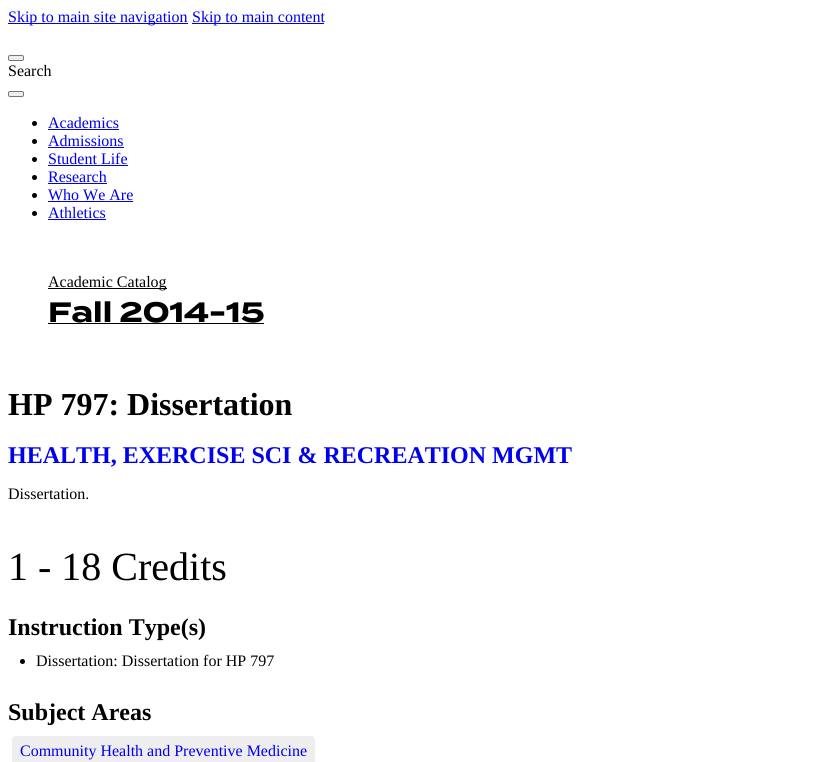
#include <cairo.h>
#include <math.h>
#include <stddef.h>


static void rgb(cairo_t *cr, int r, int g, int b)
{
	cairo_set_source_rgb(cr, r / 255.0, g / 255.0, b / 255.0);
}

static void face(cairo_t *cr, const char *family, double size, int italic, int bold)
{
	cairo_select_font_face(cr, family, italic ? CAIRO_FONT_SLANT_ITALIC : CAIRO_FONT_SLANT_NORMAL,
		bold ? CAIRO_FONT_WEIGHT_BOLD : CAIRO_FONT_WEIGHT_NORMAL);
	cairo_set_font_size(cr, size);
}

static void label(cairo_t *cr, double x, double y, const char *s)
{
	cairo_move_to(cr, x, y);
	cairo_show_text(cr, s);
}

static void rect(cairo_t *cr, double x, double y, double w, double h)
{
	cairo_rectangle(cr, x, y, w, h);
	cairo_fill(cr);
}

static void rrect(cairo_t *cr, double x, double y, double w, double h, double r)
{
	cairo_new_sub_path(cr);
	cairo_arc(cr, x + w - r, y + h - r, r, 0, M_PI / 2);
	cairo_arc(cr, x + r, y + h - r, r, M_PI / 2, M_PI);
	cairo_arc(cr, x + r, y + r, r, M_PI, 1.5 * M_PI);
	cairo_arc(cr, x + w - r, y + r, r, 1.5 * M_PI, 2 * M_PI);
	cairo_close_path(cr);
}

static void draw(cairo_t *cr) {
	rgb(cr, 255, 255, 255);
	cairo_paint(cr);
	rgb(cr, 0, 0, 238);
	rect(cr, 8, 23, 180, 1);
	face(cr, "Liberation Serif", 16, 0, 0);
	label(cr, 8, 22, "Skip to main site navigation");
	rect(cr, 192, 23, 132, 1);
	label(cr, 192, 22, "Skip to main content");
	rgb(cr, 239, 239, 239);
	rrect(cr, 8.5, 55.5, 15, 5, 1.5);
	cairo_fill_preserve(cr);
	rgb(cr, 118, 118, 118);
	cairo_set_line_width(cr, 1);
	cairo_stroke(cr);
	rgb(cr, 0, 0, 0);
	label(cr, 8, 76, "Search");
	rgb(cr, 239, 239, 239);
	rrect(cr, 8.5, 91.5, 15, 5, 1.5);
	cairo_fill_preserve(cr);
	rgb(cr, 118, 118, 118);
	cairo_stroke(cr);
	rgb(cr, 0, 0, 0);
	cairo_arc(cr, 34.5, 123.5, 2.5, 0, 2 * M_PI);
	cairo_fill(cr);
	rgb(cr, 0, 0, 238);
	label(cr, 48, 128, "Academics");
	rect(cr, 48, 129, 71, 1);
	rgb(cr, 0, 0, 0);
	cairo_new_path(cr);
	cairo_arc(cr, 34.5, 141.5, 2.5, 0, 2 * M_PI);
	cairo_fill(cr);
	rgb(cr, 0, 0, 238);
	label(cr, 48, 146, "Admissions");
	rect(cr, 48, 147, 76, 1);
	rgb(cr, 0, 0, 0);
	cairo_new_path(cr);
	cairo_arc(cr, 34.5, 159.5, 2.5, 0, 2 * M_PI);
	cairo_fill(cr);
	rgb(cr, 0, 0, 238);
	label(cr, 48, 164, "Student Life");
	rect(cr, 48, 165, 80, 1);
	rgb(cr, 0, 0, 0);
	cairo_new_path(cr);
	cairo_arc(cr, 34.5, 177.5, 2.5, 0, 2 * M_PI);
	cairo_fill(cr);
	rgb(cr, 0, 0, 238);
	label(cr, 48, 182, "Research");
	rect(cr, 48, 183, 59, 1);
	rgb(cr, 0, 0, 0);
	cairo_new_path(cr);
	cairo_arc(cr, 34.5, 195.5, 2.5, 0, 2 * M_PI);
	cairo_fill(cr);
	rgb(cr, 0, 0, 238);
	label(cr, 48, 200, "Who We Are");
	rect(cr, 48, 201, 85, 1);
	rgb(cr, 0, 0, 0);
	cairo_new_path(cr);
	cairo_arc(cr, 34.5, 213.5, 2.5, 0, 2 * M_PI);
	cairo_fill(cr);
	rgb(cr, 0, 0, 238);
	label(cr, 48, 218, "Athletics");
	rect(cr, 48, 219, 58, 1);
	rgb(cr, 0, 0, 0);
	rect(cr, 48, 288, 119, 1);
	label(cr, 48, 287, "Academic Catalog");
	face(cr, "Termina", 28, 0, 1);
	label(cr, 48, 322, "Fall 2014-15");
	rect(cr, 48, 323, 216, 1);
	face(cr, "Liberation Serif", 32, 0, 1);
	label(cr, 8, 415, "HP 797: Dissertation");
	face(cr, "Liberation Serif", 24, 0, 1);
	rgb(cr, 0, 0, 238);
	label(cr, 8, 463, "HEALTH, EXERCISE SCI & RECREATION MGMT");
	face(cr, "Liberation Serif", 16, 0, 0);
	rgb(cr, 0, 0, 0);
	label(cr, 8, 499, "Dissertation.");
	face(cr, "Liberation Serif", 40, 0, 0);
	label(cr, 8, 580, "1 - 18 Credits");
	face(cr, "Liberation Serif", 24, 0, 1);
	label(cr, 8, 635, "Instruction Type(s)");
	cairo_new_path(cr);
	cairo_arc(cr, 22.5, 661.5, 2.5, 0, 2 * M_PI);
	cairo_fill(cr);
	face(cr, "Liberation Serif", 16, 0, 0);
	label(cr, 36, 666, "Dissertation: Dissertation for HP 797");
	face(cr, "Liberation Serif", 24, 0, 1);
	label(cr, 8, 720, "Subject Areas");
	rgb(cr, 238, 238, 238);
	rrect(cr, 12, 736, 303, 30, 4);
	cairo_fill(cr);
	face(cr, "Liberation Serif", 16, 0, 0);
	rgb(cr, 0, 0, 238);
	label(cr, 20, 756, "Community Health and Preventive Medicine");
}

int main(void) {
	cairo_surface_t *surface = cairo_image_surface_create(CAIRO_FORMAT_RGB24, 834, 762);
	cairo_t *cr = cairo_create(surface);
	cairo_font_options_t *options = cairo_font_options_create();
	cairo_font_options_set_hint_metrics(options, CAIRO_HINT_METRICS_OFF);
	cairo_font_options_set_hint_style(options, CAIRO_HINT_STYLE_NONE);
	cairo_set_font_options(cr, options);
	cairo_set_miter_limit(cr, 4);
	draw(cr);
	cairo_surface_write_to_png(surface, "render.png");
	cairo_font_options_destroy(options);
	cairo_destroy(cr);
	cairo_surface_destroy(surface);
	return 0;
}
